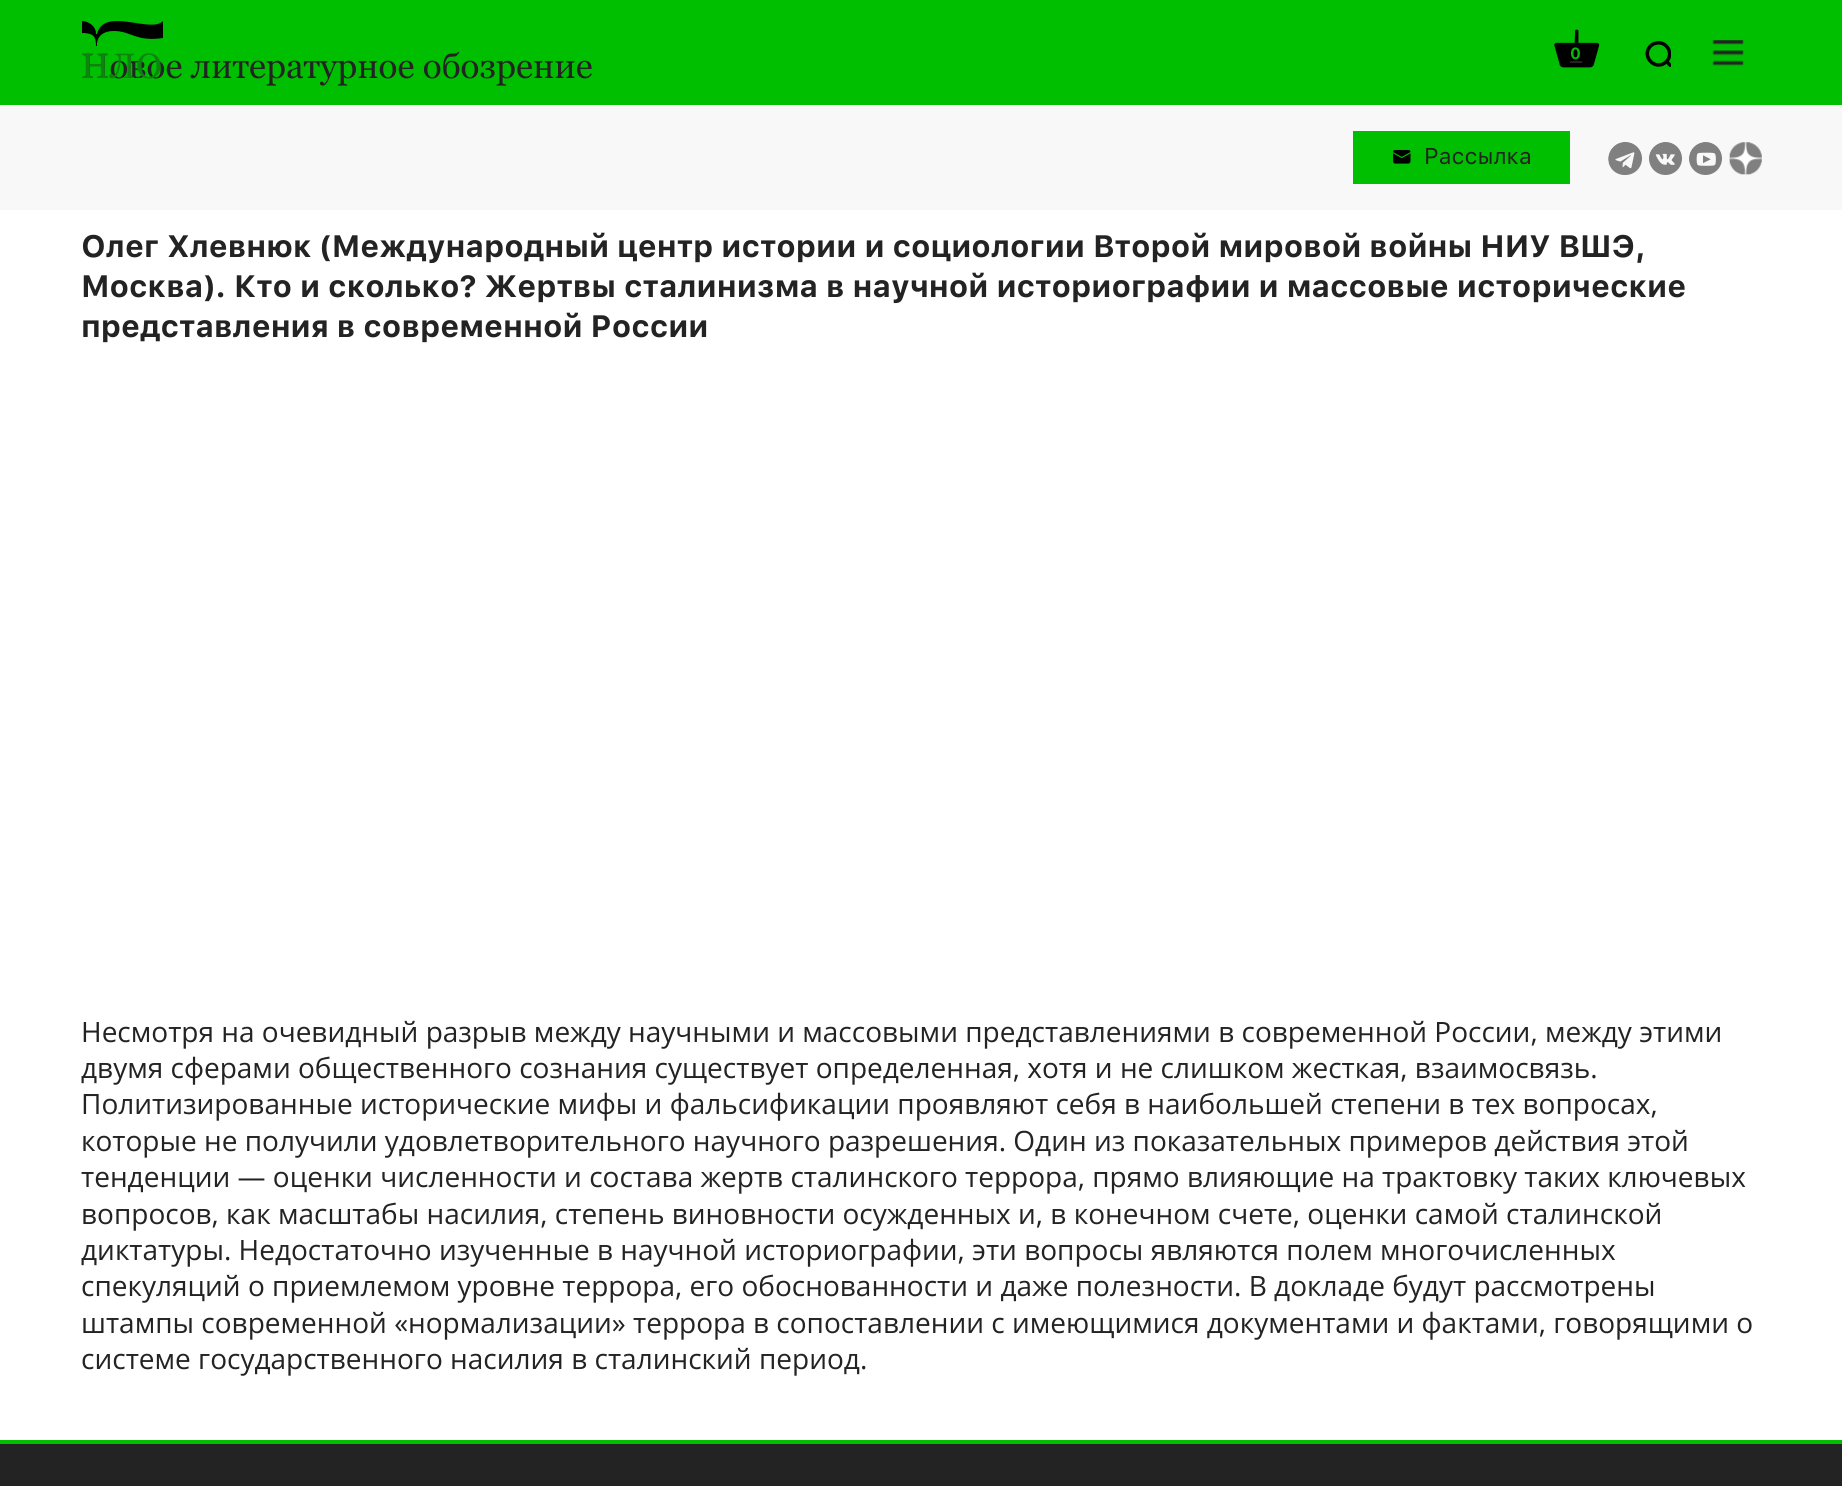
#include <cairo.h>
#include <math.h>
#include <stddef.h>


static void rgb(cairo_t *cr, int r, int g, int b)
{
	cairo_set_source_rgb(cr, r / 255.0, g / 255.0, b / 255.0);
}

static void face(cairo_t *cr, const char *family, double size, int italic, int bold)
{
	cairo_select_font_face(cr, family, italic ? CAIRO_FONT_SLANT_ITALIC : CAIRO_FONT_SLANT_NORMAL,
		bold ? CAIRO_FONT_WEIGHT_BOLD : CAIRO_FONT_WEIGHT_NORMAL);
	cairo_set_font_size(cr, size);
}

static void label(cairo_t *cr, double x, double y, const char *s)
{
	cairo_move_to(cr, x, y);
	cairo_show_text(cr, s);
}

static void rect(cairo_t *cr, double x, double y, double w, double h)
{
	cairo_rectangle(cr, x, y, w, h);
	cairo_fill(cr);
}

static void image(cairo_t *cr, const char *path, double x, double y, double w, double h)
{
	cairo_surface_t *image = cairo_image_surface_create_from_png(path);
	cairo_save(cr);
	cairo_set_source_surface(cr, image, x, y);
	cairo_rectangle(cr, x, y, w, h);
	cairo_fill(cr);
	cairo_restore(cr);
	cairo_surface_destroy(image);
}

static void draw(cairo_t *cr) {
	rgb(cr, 255, 255, 255);
	cairo_paint(cr);
	rgb(cr, 0, 190, 0);
	rect(cr, 0, 0, 1842, 105);
	rgb(cr, 0, 0, 0);
	cairo_new_path(cr);
	cairo_move_to(cr, 163, 38);
	cairo_curve_to(cr, 136, 42, 131, 31, 114, 31);
	cairo_curve_to(cr, 95, 31, 97, 46, 97, 46);
	cairo_line_to(cr, 96, 46);
	cairo_curve_to(cr, 96, 37, 94, 33, 82, 33);
	cairo_line_to(cr, 82, 21);
	cairo_curve_to(cr, 87, 21, 96, 25, 96, 34);
	cairo_line_to(cr, 97, 34);
	cairo_curve_to(cr, 104, 6, 151, 34, 163, 21);
	cairo_close_path(cr);
	cairo_fill(cr);
	face(cr, "Georgia", 35, 0, 0);
	rgb(cr, 35, 35, 35);
	label(cr, 81, 78, "Новое литературное обозрение");
	rgb(cr, 13, 132, 13);
	label(cr, 81, 78, "НЛО");
	image(cr, "image0.png", 1554, 29, 46, 39);
	face(cr, "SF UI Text", 16, 0, 1);
	rgb(cr, 0, 190, 0);
	label(cr, 1570, 59, "0");
	rgb(cr, 35, 35, 35);
	rect(cr, 1570, 61, 12, 2);
	cairo_save(cr);
	cairo_rectangle(cr, 1643, 39, 28, 28);
	cairo_clip(cr);
	cairo_new_path(cr);
	cairo_move_to(cr, 1672.5, 67.5);
	cairo_line_to(cr, 1666.5, 61.5);
	cairo_move_to(cr, 1666.5, 61.5);
	cairo_curve_to(cr, 1674, 54, 1667, 41, 1656.5, 43);
	cairo_curve_to(cr, 1654, 43.5, 1652, 44.5, 1650.5, 46);
	cairo_curve_to(cr, 1640.5, 56.5, 1656, 72, 1666.5, 61.5);
	cairo_close_path(cr);
	rgb(cr, 0, 0, 0);
	cairo_set_line_width(cr, 3.5);
	cairo_set_line_cap(cr, CAIRO_LINE_CAP_ROUND);
	cairo_set_line_join(cr, CAIRO_LINE_JOIN_ROUND);
	cairo_stroke(cr);
	cairo_restore(cr);
	image(cr, "image1.png", 1712, 40, 32, 26);
	rgb(cr, 248, 248, 248);
	rect(cr, 0, 105, 1842, 105);
	rgb(cr, 0, 190, 0);
	rect(cr, 1353, 131, 217, 53);
	image(cr, "image2.png", 1393, 150, 18, 14);
	face(cr, "SF UI Text", 22.75, 0, 0);
	rgb(cr, 35, 35, 35);
	label(cr, 1424, 164, "Рассылка");
	image(cr, "image3.png", 1608, 142, 34, 33);
	image(cr, "image4.png", 1649, 142, 33, 33);
	image(cr, "image5.png", 1689, 142, 33, 33);
	image(cr, "image6.png", 1729, 142, 33, 33);
	face(cr, "SF UI Text", 30.8, 0, 1);
	label(cr, 81, 257, "Олег Хлевнюк (Международный центр истории и социологии Второй мировой войны НИУ ВШЭ,");
	label(cr, 81, 297, "Москва). Кто и сколько? Жертвы сталинизма в научной историографии и массовые исторические");
	label(cr, 81, 337, "представления в современной России");
	face(cr, "Open Sans", 28, 0, 0);
	label(cr, 81, 1042, "Несмотря на очевидный разрыв между научными и массовыми представлениями в современной России, между этими");
	label(cr, 81, 1078, "двумя сферами общественного сознания существует определенная, хотя и не слишком жесткая, взаимосвязь.");
	label(cr, 81, 1114, "Политизированные исторические мифы и фальсификации проявляют себя в наибольшей степени в тех вопросах,");
	label(cr, 81, 1151, "которые не получили удовлетворительного научного разрешения. Один из показательных примеров действия этой");
	label(cr, 81, 1187, "тенденции — оценки численности и состава жертв сталинского террора, прямо влияющие на трактовку таких ключевых");
	label(cr, 81, 1224, "вопросов, как масштабы насилия, степень виновности осужденных и, в конечном счете, оценки самой сталинской");
	label(cr, 81, 1260, "диктатуры. Недостаточно изученные в научной историографии, эти вопросы являются полем многочисленных");
	label(cr, 81, 1296, "спекуляций о приемлемом уровне террора, его обоснованности и даже полезности. В докладе будут рассмотрены");
	label(cr, 81, 1333, "штампы современной «нормализации» террора в сопоставлении с имеющимися документами и фактами, говорящими о");
	label(cr, 81, 1369, "системе государственного насилия в сталинский период.");
	rect(cr, 0, 1444, 1842, 42);
	rgb(cr, 0, 190, 0);
	rect(cr, 0, 1440, 1842, 4);
}

int main(void) {
	cairo_surface_t *surface = cairo_image_surface_create(CAIRO_FORMAT_RGB24, 1842, 1486);
	cairo_t *cr = cairo_create(surface);
	cairo_font_options_t *options = cairo_font_options_create();
	cairo_font_options_set_hint_metrics(options, CAIRO_HINT_METRICS_OFF);
	cairo_font_options_set_hint_style(options, CAIRO_HINT_STYLE_NONE);
	cairo_set_font_options(cr, options);
	cairo_set_miter_limit(cr, 4);
	draw(cr);
	cairo_surface_write_to_png(surface, "render.png");
	cairo_font_options_destroy(options);
	cairo_destroy(cr);
	cairo_surface_destroy(surface);
	return 0;
}
